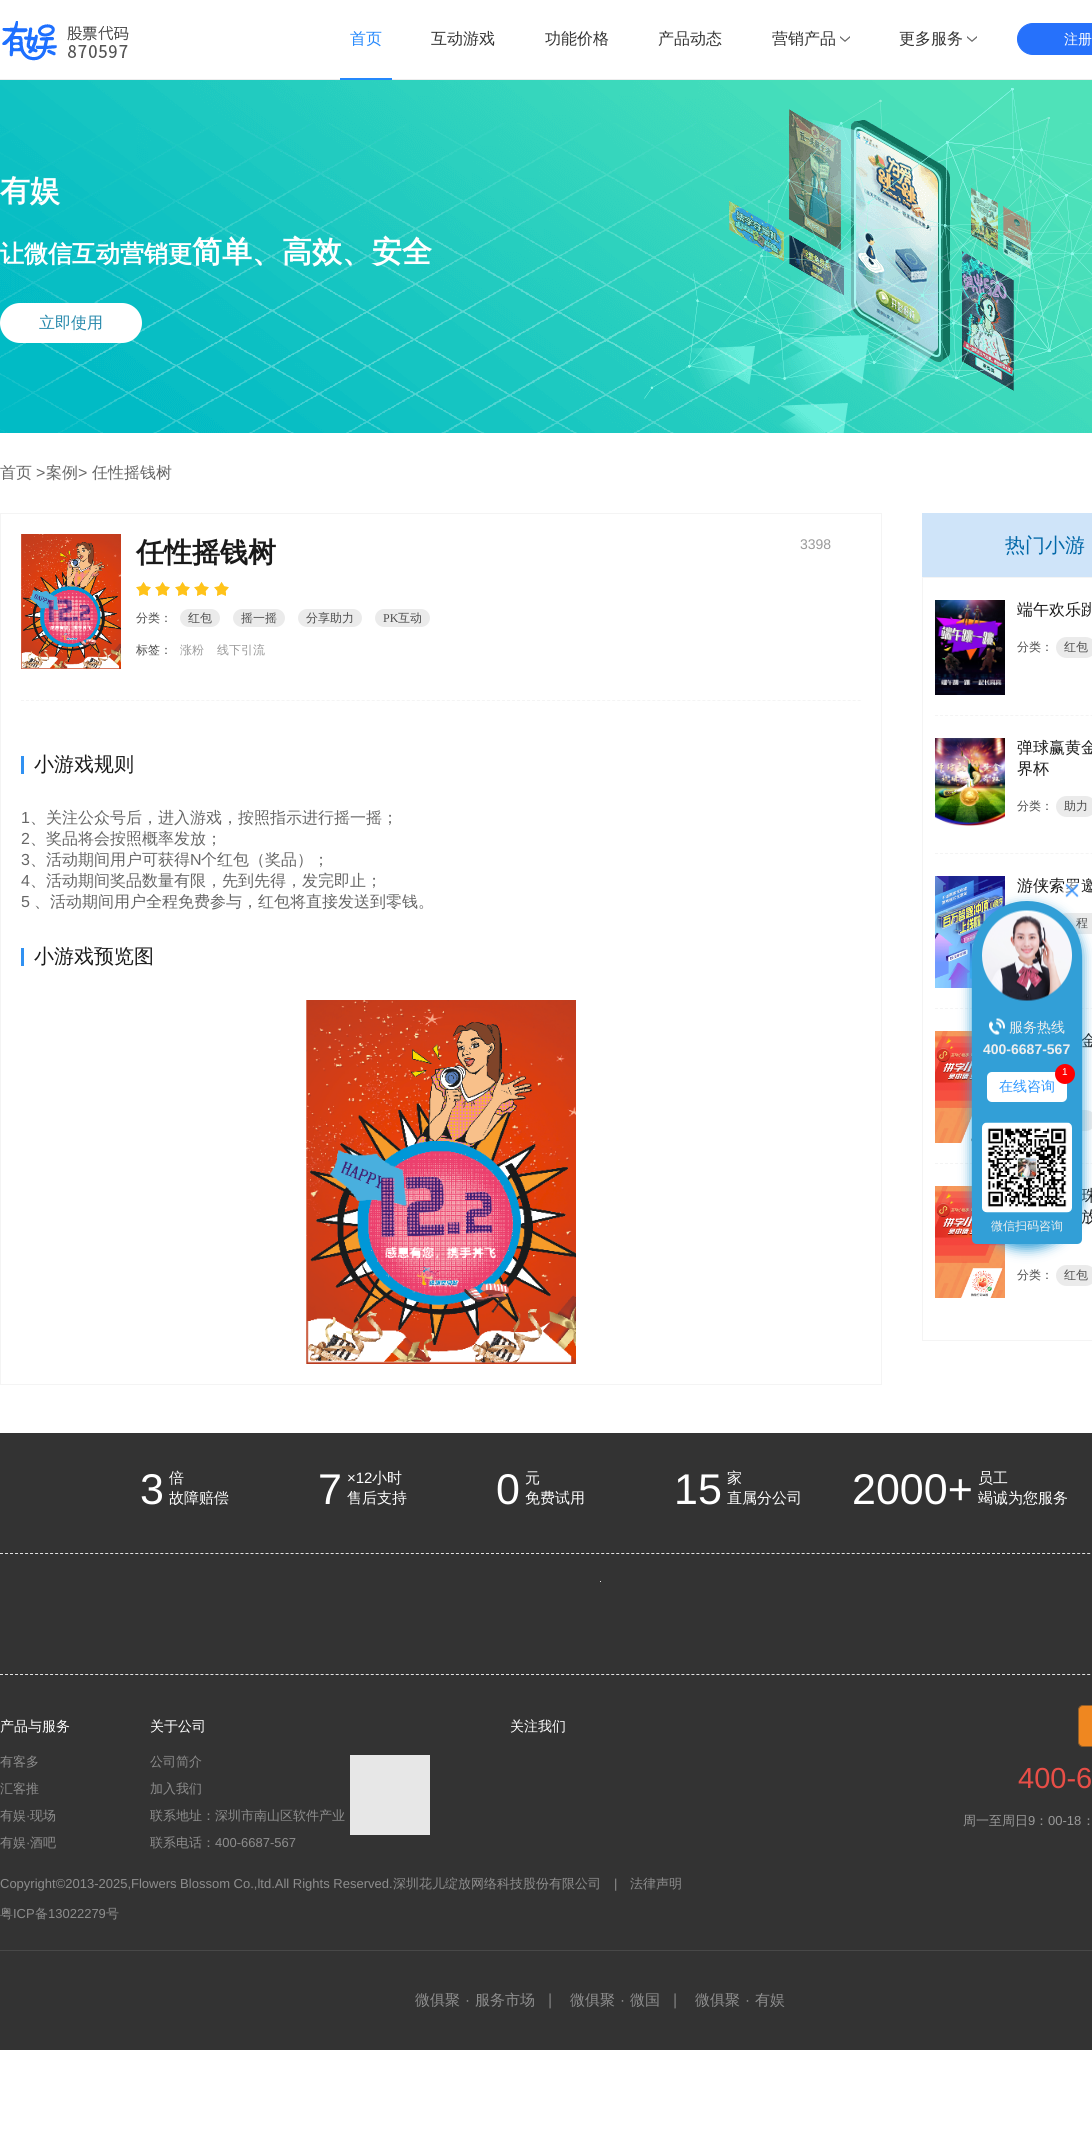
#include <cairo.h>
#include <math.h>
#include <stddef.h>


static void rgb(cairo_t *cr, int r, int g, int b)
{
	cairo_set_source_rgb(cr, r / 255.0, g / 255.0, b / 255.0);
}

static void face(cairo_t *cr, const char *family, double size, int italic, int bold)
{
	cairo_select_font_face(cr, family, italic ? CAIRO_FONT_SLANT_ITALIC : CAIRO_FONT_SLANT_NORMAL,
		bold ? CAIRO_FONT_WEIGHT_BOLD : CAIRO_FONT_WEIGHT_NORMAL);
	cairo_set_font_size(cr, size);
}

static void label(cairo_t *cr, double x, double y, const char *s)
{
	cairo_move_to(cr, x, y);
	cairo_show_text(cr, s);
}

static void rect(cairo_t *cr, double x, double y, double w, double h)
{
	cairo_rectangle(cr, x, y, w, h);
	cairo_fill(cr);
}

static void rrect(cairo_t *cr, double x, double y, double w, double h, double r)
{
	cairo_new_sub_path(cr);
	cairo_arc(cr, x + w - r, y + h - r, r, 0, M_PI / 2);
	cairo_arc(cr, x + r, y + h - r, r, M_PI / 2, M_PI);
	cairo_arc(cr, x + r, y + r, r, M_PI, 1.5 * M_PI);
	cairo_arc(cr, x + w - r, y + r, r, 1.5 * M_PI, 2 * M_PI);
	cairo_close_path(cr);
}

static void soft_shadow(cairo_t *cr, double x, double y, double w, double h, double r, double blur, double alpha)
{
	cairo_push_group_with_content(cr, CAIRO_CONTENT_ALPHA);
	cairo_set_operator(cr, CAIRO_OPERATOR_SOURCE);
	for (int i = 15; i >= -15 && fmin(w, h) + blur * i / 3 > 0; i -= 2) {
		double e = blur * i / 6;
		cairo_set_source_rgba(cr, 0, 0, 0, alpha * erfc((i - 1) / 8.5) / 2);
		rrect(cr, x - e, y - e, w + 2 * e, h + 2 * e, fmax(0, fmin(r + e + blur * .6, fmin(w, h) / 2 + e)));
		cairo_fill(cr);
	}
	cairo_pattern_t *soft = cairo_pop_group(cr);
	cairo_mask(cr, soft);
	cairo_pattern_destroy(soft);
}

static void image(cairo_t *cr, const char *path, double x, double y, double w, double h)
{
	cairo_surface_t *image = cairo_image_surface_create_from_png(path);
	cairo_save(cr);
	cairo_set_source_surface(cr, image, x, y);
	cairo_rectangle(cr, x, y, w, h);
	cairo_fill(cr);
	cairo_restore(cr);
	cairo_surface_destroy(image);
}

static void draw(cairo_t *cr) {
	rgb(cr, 255, 255, 255);
	cairo_paint(cr);
	rgb(cr, 237, 237, 237);
	rect(cr, 0, 79, 1092, 1);
	image(cr, "image0.png", 2, 21, 127, 40);
	rgb(cr, 37, 136, 252);
	rect(cr, 340, 78, 52, 2);
	face(cr, "WenQuanYi Zen Hei Medium", 16, 0, 0);
	label(cr, 350, 44, "首页");
	rgb(cr, 51, 51, 51);
	label(cr, 431, 44, "互动游戏");
	label(cr, 545, 44, "功能价格");
	label(cr, 658, 44, "产品动态");
	label(cr, 772, 44, "营销产品");
	image(cr, "image1.png", 840, 36, 10, 6);
	label(cr, 899, 44, "更多服务");
	image(cr, "image1.png", 967, 36, 10, 6);
	rgb(cr, 38, 113, 251);
	rrect(cr, 1017.5, 23.5, 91, 31, 15.5);
	cairo_fill_preserve(cr);
	cairo_set_line_width(cr, 1);
	cairo_stroke(cr);
	face(cr, "WenQuanYi Zen Hei Medium", 14, 0, 0);
	rgb(cr, 255, 255, 255);
	label(cr, 1064, 44, "注册");
	image(cr, "image2.png", 0, 80, 1092, 353);
	face(cr, "WenQuanYi Zen Hei", 30, 0, 1);
	label(cr, 0, 201, "有娱");
	face(cr, "WenQuanYi Zen Hei", 24, 0, 1);
	label(cr, 0, 262, "让微信互动营销更");
	face(cr, "WenQuanYi Zen Hei", 30, 0, 1);
	label(cr, 192, 262, "简单、高效、安全");
	rrect(cr, 0, 303, 142, 40, 20);
	cairo_fill(cr);
	face(cr, "WenQuanYi Zen Hei Medium", 16, 0, 0);
	rgb(cr, 39, 137, 172);
	label(cr, 39, 328, "立即使用");
	rgb(cr, 102, 102, 102);
	label(cr, 0, 478, "首页");
	face(cr, "Liberation Sans", 16, 0, 0);
	label(cr, 36, 478, ">");
	face(cr, "WenQuanYi Zen Hei Medium", 16, 0, 0);
	label(cr, 46, 478, "案例");
	face(cr, "Liberation Sans", 16, 0, 0);
	label(cr, 78, 478, ">");
	face(cr, "WenQuanYi Zen Hei Medium", 16, 0, 0);
	label(cr, 92, 478, "任性摇钱树");
	cairo_rectangle(cr, 0.5, 513.5, 881, 871);
	rgb(cr, 244, 244, 244);
	cairo_stroke(cr);
	cairo_new_path(cr);
	cairo_move_to(cr, 21, 700.5);
	cairo_line_to(cr, 861, 700.5);
	cairo_set_dash(cr, (double[]){3, 2.01}, 2, 0);
	cairo_stroke(cr);
	image(cr, "image3.png", 21, 534, 100, 135);
	face(cr, "WenQuanYi Zen Hei", 28, 0, 1);
	rgb(cr, 26, 26, 26);
	label(cr, 136, 562, "任性摇钱树");
	image(cr, "image4.png", 136, 582, 15, 14);
	image(cr, "image4.png", 155, 582, 15, 14);
	image(cr, "image4.png", 175, 582, 15, 14);
	image(cr, "image4.png", 194, 582, 15, 14);
	image(cr, "image4.png", 214, 582, 15, 14);
	face(cr, "WenQuanYi Zen Hei Medium", 12, 0, 0);
	rgb(cr, 77, 77, 77);
	label(cr, 136, 622, "分类：");
	rgb(cr, 235, 235, 235);
	rrect(cr, 180, 609, 40, 18, 9);
	cairo_fill(cr);
	rgb(cr, 77, 77, 77);
	label(cr, 188, 622, "红包");
	rgb(cr, 235, 235, 235);
	rrect(cr, 233, 609, 52, 18, 9);
	cairo_fill(cr);
	rgb(cr, 77, 77, 77);
	label(cr, 241, 622, "摇一摇");
	rgb(cr, 235, 235, 235);
	rrect(cr, 298, 609, 64, 18, 9);
	cairo_fill(cr);
	rgb(cr, 77, 77, 77);
	label(cr, 306, 622, "分享助力");
	rgb(cr, 235, 235, 235);
	rrect(cr, 375, 609, 55, 18, 9);
	cairo_fill(cr);
	face(cr, "Liberation Serif", 12, 0, 0);
	rgb(cr, 77, 77, 77);
	label(cr, 383, 622, "PK");
	face(cr, "WenQuanYi Zen Hei Medium", 12, 0, 0);
	label(cr, 398, 622, "互动");
	label(cr, 136, 654, "标签：");
	rgb(cr, 153, 153, 153);
	label(cr, 180, 654, "涨粉");
	label(cr, 217, 654, "线下引流");
	face(cr, "Liberation Sans", 14, 0, 0);
	label(cr, 800, 549, "3398");
	rgb(cr, 48, 145, 242);
	rect(cr, 21, 756, 3, 18);
	face(cr, "WenQuanYi Zen Hei Medium", 20, 0, 0);
	rgb(cr, 26, 26, 26);
	label(cr, 34, 771, "小游戏规则");
	face(cr, "Liberation Sans", 16, 0, 0);
	rgb(cr, 102, 102, 102);
	label(cr, 21, 823, "1");
	face(cr, "WenQuanYi Zen Hei Medium", 16, 0, 0);
	label(cr, 30, 823, "、关注公众号后，进入游戏，按照指示进行摇一摇；");
	face(cr, "Liberation Sans", 16, 0, 0);
	label(cr, 21, 844, "2");
	face(cr, "WenQuanYi Zen Hei Medium", 16, 0, 0);
	label(cr, 30, 844, "、奖品将会按照概率发放；");
	face(cr, "Liberation Sans", 16, 0, 0);
	label(cr, 21, 865, "3");
	face(cr, "WenQuanYi Zen Hei Medium", 16, 0, 0);
	label(cr, 30, 865, "、活动期间用户可获得");
	face(cr, "Liberation Sans", 16, 0, 0);
	label(cr, 190, 865, "N");
	face(cr, "WenQuanYi Zen Hei Medium", 16, 0, 0);
	label(cr, 201, 865, "个红包（奖品）；");
	face(cr, "Liberation Sans", 16, 0, 0);
	label(cr, 21, 886, "4");
	face(cr, "WenQuanYi Zen Hei Medium", 16, 0, 0);
	label(cr, 30, 886, "、活动期间奖品数量有限，先到先得，发完即止；");
	face(cr, "Liberation Sans", 16, 0, 0);
	label(cr, 21, 907, "5");
	face(cr, "WenQuanYi Zen Hei Medium", 16, 0, 0);
	label(cr, 34, 907, "、活动期间用户全程免费参与，红包将直接发送到零钱。");
	rgb(cr, 48, 145, 242);
	rect(cr, 21, 948, 3, 18);
	face(cr, "WenQuanYi Zen Hei Medium", 20, 0, 0);
	rgb(cr, 26, 26, 26);
	label(cr, 34, 963, "小游戏预览图");
	image(cr, "image5.png", 306, 1000, 270, 364);
	rgb(cr, 207, 228, 249);
	rect(cr, 922, 513, 170, 64);
	rgb(cr, 2, 104, 168);
	label(cr, 1005, 552, "热门小游");
	cairo_rectangle(cr, 922.5, 577.5, 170, 763);
	rgb(cr, 244, 244, 244);
	cairo_set_dash(cr, NULL, 0, 0);
	cairo_stroke(cr);
	cairo_new_path(cr);
	cairo_move_to(cr, 935, 715.5);
	cairo_line_to(cr, 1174, 715.5);
	cairo_set_dash(cr, (double[]){3, 2.02}, 2, 0);
	cairo_stroke(cr);
	image(cr, "image6.png", 935, 600, 70, 95);
	face(cr, "WenQuanYi Zen Hei Medium", 16, 0, 0);
	rgb(cr, 26, 26, 26);
	label(cr, 1017, 615, "端午欢乐跳");
	face(cr, "WenQuanYi Zen Hei Medium", 12, 0, 0);
	rgb(cr, 77, 77, 77);
	label(cr, 1017, 651, "分类：");
	rgb(cr, 235, 235, 235);
	rrect(cr, 1056, 637, 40, 21, 10.5);
	cairo_fill(cr);
	rgb(cr, 77, 77, 77);
	label(cr, 1064, 651, "红包");
	cairo_new_path(cr);
	cairo_move_to(cr, 935, 853.5);
	cairo_line_to(cr, 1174, 853.5);
	rgb(cr, 244, 244, 244);
	cairo_stroke(cr);
	image(cr, "image7.png", 935, 738, 70, 88);
	face(cr, "WenQuanYi Zen Hei Medium", 16, 0, 0);
	rgb(cr, 26, 26, 26);
	label(cr, 1017, 753, "弹球赢黄金");
	label(cr, 1017, 774, "界杯");
	face(cr, "WenQuanYi Zen Hei Medium", 12, 0, 0);
	rgb(cr, 77, 77, 77);
	label(cr, 1017, 810, "分类：");
	rgb(cr, 235, 235, 235);
	rrect(cr, 1056, 796, 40, 21, 10.5);
	cairo_fill(cr);
	rgb(cr, 77, 77, 77);
	label(cr, 1064, 810, "助力");
	cairo_new_path(cr);
	cairo_move_to(cr, 935, 1008.5);
	cairo_line_to(cr, 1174, 1008.5);
	rgb(cr, 244, 244, 244);
	cairo_stroke(cr);
	image(cr, "image8.png", 935, 876, 70, 112);
	face(cr, "WenQuanYi Zen Hei Medium", 16, 0, 0);
	rgb(cr, 26, 26, 26);
	label(cr, 1017, 891, "游侠索罗邀");
	rgb(cr, 235, 235, 235);
	rrect(cr, 1056, 913, 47, 21, 10.5);
	cairo_fill(cr);
	face(cr, "WenQuanYi Zen Hei Medium", 12, 0, 0);
	rgb(cr, 77, 77, 77);
	label(cr, 1076, 927, "程");
	cairo_new_path(cr);
	cairo_move_to(cr, 935, 1163.5);
	cairo_line_to(cr, 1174, 1163.5);
	rgb(cr, 244, 244, 244);
	cairo_stroke(cr);
	image(cr, "image9.png", 935, 1031, 37, 112);
	face(cr, "WenQuanYi Zen Hei Medium", 16, 0, 0);
	rgb(cr, 26, 26, 26);
	label(cr, 1081, 1046, "金");
	rgb(cr, 235, 235, 235);
	rrect(cr, 1056, 1110, 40, 21, 10.5);
	cairo_fill(cr);
	image(cr, "image10.png", 935, 1186, 70, 112);
	rgb(cr, 26, 26, 26);
	label(cr, 1081, 1201, "珠");
	label(cr, 1081, 1222, "放");
	face(cr, "WenQuanYi Zen Hei Medium", 12, 0, 0);
	rgb(cr, 77, 77, 77);
	label(cr, 1017, 1279, "分类：");
	rgb(cr, 235, 235, 235);
	rrect(cr, 1056, 1265, 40, 21, 10.5);
	cairo_fill(cr);
	rgb(cr, 77, 77, 77);
	label(cr, 1064, 1279, "红包");
	rgb(cr, 50, 159, 215);
	soft_shadow(cr, 972, 906, 110, 343, 55, 6, 1);
	rgb(cr, 50, 159, 215);
	cairo_new_path(cr);
	cairo_move_to(cr, 1027, 901);
	cairo_curve_to(cr, 1057.5, 901, 1082, 925.5, 1082, 956);
	cairo_line_to(cr, 1082, 1239);
	cairo_curve_to(cr, 1082, 1242, 1080, 1244, 1077, 1244);
	cairo_line_to(cr, 977, 1244);
	cairo_curve_to(cr, 974, 1244, 972, 1242, 972, 1239);
	cairo_line_to(cr, 972, 956);
	cairo_curve_to(cr, 972, 925.5, 996.5, 901, 1027, 901);
	cairo_close_path(cr);
	cairo_fill(cr);
	image(cr, "image11.png", 1062, 880, 20, 18);
	image(cr, "image12.png", 982, 910, 90, 91);
	image(cr, "image13.png", 989, 1018, 16, 17);
	face(cr, "WenQuanYi Zen Hei Medium", 14, 0, 0);
	rgb(cr, 238, 238, 238);
	label(cr, 1009, 1032, "服务热线");
	face(cr, "Liberation Sans", 14, 0, 1);
	label(cr, 983, 1054, "400-6687-567");
	rgb(cr, 255, 255, 255);
	rrect(cr, 987, 1072, 80, 30, 5);
	cairo_fill(cr);
	rgb(cr, 255, 0, 0);
	cairo_arc(cr, 1065, 1074, 10, 0, 2 * M_PI);
	cairo_fill(cr);
	face(cr, "Liberation Sans", 10, 0, 0);
	rgb(cr, 255, 255, 255);
	label(cr, 1062, 1075, "1");
	face(cr, "WenQuanYi Zen Hei Medium", 14, 0, 0);
	rgb(cr, 48, 152, 255);
	label(cr, 999, 1091, "在线咨询");
	image(cr, "image14.png", 982, 1122, 90, 91);
	face(cr, "WenQuanYi Zen Hei Medium", 12, 0, 0);
	rgb(cr, 238, 238, 238);
	label(cr, 991, 1230, "微信扫码咨询");
	rgb(cr, 51, 51, 51);
	rect(cr, 0, 1433, 1092, 617);
	cairo_new_path(cr);
	cairo_move_to(cr, 0, 1553.5);
	cairo_line_to(cr, 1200, 1553.5);
	rgb(cr, 226, 226, 226);
	cairo_set_dash(cr, (double[]){3, 2.01}, 2, 0);
	cairo_stroke(cr);
	face(cr, "Liberation Sans", 43, 0, 0);
	rgb(cr, 255, 255, 255);
	label(cr, 140, 1504, "3");
	face(cr, "WenQuanYi Zen Hei Medium", 15, 0, 0);
	label(cr, 169, 1483, "倍");
	label(cr, 169, 1503, "故障赔偿");
	face(cr, "Liberation Sans", 43, 0, 0);
	label(cr, 318, 1504, "7");
	face(cr, "Liberation Sans", 15, 0, 0);
	label(cr, 347, 1483, "×12");
	face(cr, "WenQuanYi Zen Hei Medium", 15, 0, 0);
	label(cr, 372, 1483, "小时");
	label(cr, 347, 1503, "售后支持");
	face(cr, "Liberation Sans", 43, 0, 0);
	label(cr, 496, 1504, "0");
	face(cr, "WenQuanYi Zen Hei Medium", 15, 0, 0);
	label(cr, 525, 1483, "元");
	label(cr, 525, 1503, "免费试用");
	face(cr, "Liberation Sans", 43, 0, 0);
	label(cr, 674, 1504, "15");
	face(cr, "WenQuanYi Zen Hei Medium", 15, 0, 0);
	label(cr, 727, 1483, "家");
	label(cr, 727, 1503, "直属分公司");
	face(cr, "Liberation Sans", 43, 0, 0);
	label(cr, 852, 1504, "2000+");
	face(cr, "WenQuanYi Zen Hei Medium", 15, 0, 0);
	label(cr, 978, 1483, "员工");
	label(cr, 978, 1503, "竭诚为您服务");
	cairo_new_path(cr);
	cairo_move_to(cr, 0, 1674.5);
	cairo_line_to(cr, 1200, 1674.5);
	rgb(cr, 226, 226, 226);
	cairo_stroke(cr);
	rgb(cr, 231, 231, 231);
	rect(cr, 600, 1581, 1, 1);
	face(cr, "WenQuanYi Zen Hei Medium", 14, 0, 0);
	rgb(cr, 255, 255, 255);
	label(cr, 0, 1731, "产品与服务");
	face(cr, "WenQuanYi Zen Hei Medium", 13, 0, 0);
	rgb(cr, 141, 141, 141);
	label(cr, 0, 1766, "有客多");
	label(cr, 0, 1793, "汇客推");
	label(cr, 0, 1820, "有娱");
	face(cr, "Liberation Sans", 13, 0, 0);
	label(cr, 26, 1820, "·");
	face(cr, "WenQuanYi Zen Hei Medium", 13, 0, 0);
	label(cr, 30, 1820, "现场");
	label(cr, 0, 1847, "有娱");
	face(cr, "Liberation Sans", 13, 0, 0);
	label(cr, 26, 1847, "·");
	face(cr, "WenQuanYi Zen Hei Medium", 13, 0, 0);
	label(cr, 30, 1847, "酒吧");
	face(cr, "WenQuanYi Zen Hei Medium", 14, 0, 0);
	rgb(cr, 255, 255, 255);
	label(cr, 150, 1731, "关于公司");
	face(cr, "WenQuanYi Zen Hei Medium", 13, 0, 0);
	rgb(cr, 141, 141, 141);
	label(cr, 150, 1766, "公司简介");
	label(cr, 150, 1793, "加入我们");
	label(cr, 150, 1820, "联系地址：深圳市南山区软件产业");
	label(cr, 150, 1847, "联系电话：");
	face(cr, "Liberation Sans", 13, 0, 0);
	label(cr, 215, 1847, "400-6687-567");
	face(cr, "WenQuanYi Zen Hei Medium", 14, 0, 0);
	rgb(cr, 255, 255, 255);
	label(cr, 510, 1731, "关注我们");
	rgb(cr, 231, 231, 231);
	rect(cr, 350, 1755, 80, 80);
	rgb(cr, 239, 135, 32);
	rrect(cr, 1078.5, 1705.5, 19, 41, 4.5);
	cairo_fill_preserve(cr);
	rgb(cr, 145, 94, 41);
	cairo_set_dash(cr, NULL, 0, 0);
	cairo_stroke(cr);
	face(cr, "Liberation Sans", 29, 0, 0);
	rgb(cr, 232, 78, 71);
	label(cr, 1018, 1788, "400-6");
	face(cr, "WenQuanYi Zen Hei Medium", 13, 0, 0);
	rgb(cr, 153, 153, 153);
	label(cr, 963, 1825, "周一至周日");
	face(cr, "Liberation Sans", 13, 0, 0);
	label(cr, 1028, 1825, "9");
	face(cr, "WenQuanYi Zen Hei Medium", 13, 0, 0);
	label(cr, 1035, 1825, "：");
	face(cr, "Liberation Sans", 13, 0, 0);
	label(cr, 1048, 1825, "00-18");
	face(cr, "WenQuanYi Zen Hei Medium", 13, 0, 0);
	label(cr, 1082, 1825, "：");
	face(cr, "Liberation Sans", 13, 0, 0);
	rgb(cr, 141, 141, 141);
	label(cr, 0, 1888, "Copyright©2013-2025,Flowers Blossom Co.,ltd.All Rights Reserved.");
	face(cr, "WenQuanYi Zen Hei Medium", 13, 0, 0);
	label(cr, 393, 1888, "深圳花儿绽放网络科技股份有限公司");
	face(cr, "Liberation Sans", 13, 0, 0);
	label(cr, 614, 1888, "|");
	face(cr, "WenQuanYi Zen Hei Medium", 13, 0, 0);
	label(cr, 630, 1888, "法律声明");
	label(cr, 0, 1918, "粤");
	face(cr, "Liberation Sans", 13, 0, 0);
	label(cr, 13, 1918, "ICP");
	face(cr, "WenQuanYi Zen Hei Medium", 13, 0, 0);
	label(cr, 35, 1918, "备");
	face(cr, "Liberation Sans", 13, 0, 0);
	label(cr, 48, 1918, "13022279");
	face(cr, "WenQuanYi Zen Hei Medium", 13, 0, 0);
	label(cr, 106, 1918, "号");
	rgb(cr, 72, 72, 72);
	rect(cr, 0, 1950, 1092, 1);
	face(cr, "WenQuanYi Zen Hei Medium", 15, 0, 0);
	rgb(cr, 141, 141, 141);
	label(cr, 415, 2005, "微俱聚");
	face(cr, "Liberation Sans", 15, 0, 0);
	label(cr, 465, 2005, "·");
	face(cr, "WenQuanYi Zen Hei Medium", 15, 0, 0);
	label(cr, 475, 2005, "服务市场");
	face(cr, "Liberation Sans", 16, 0, 0);
	rgb(cr, 126, 126, 126);
	label(cr, 548, 2005, "|");
	face(cr, "WenQuanYi Zen Hei Medium", 15, 0, 0);
	rgb(cr, 141, 141, 141);
	label(cr, 570, 2005, "微俱聚");
	face(cr, "Liberation Sans", 15, 0, 0);
	label(cr, 620, 2005, "·");
	face(cr, "WenQuanYi Zen Hei Medium", 15, 0, 0);
	label(cr, 630, 2005, "微国");
	face(cr, "Liberation Sans", 16, 0, 0);
	rgb(cr, 126, 126, 126);
	label(cr, 673, 2005, "|");
	face(cr, "WenQuanYi Zen Hei Medium", 15, 0, 0);
	rgb(cr, 141, 141, 141);
	label(cr, 695, 2005, "微俱聚");
	face(cr, "Liberation Sans", 15, 0, 0);
	label(cr, 745, 2005, "·");
	face(cr, "WenQuanYi Zen Hei Medium", 15, 0, 0);
	label(cr, 755, 2005, "有娱");
}

int main(void) {
	cairo_surface_t *surface = cairo_image_surface_create(CAIRO_FORMAT_RGB24, 1092, 2143);
	cairo_t *cr = cairo_create(surface);
	cairo_font_options_t *options = cairo_font_options_create();
	cairo_font_options_set_hint_metrics(options, CAIRO_HINT_METRICS_OFF);
	cairo_font_options_set_hint_style(options, CAIRO_HINT_STYLE_NONE);
	cairo_set_font_options(cr, options);
	cairo_set_miter_limit(cr, 4);
	draw(cr);
	cairo_surface_write_to_png(surface, "render.png");
	cairo_font_options_destroy(options);
	cairo_destroy(cr);
	cairo_surface_destroy(surface);
	return 0;
}
